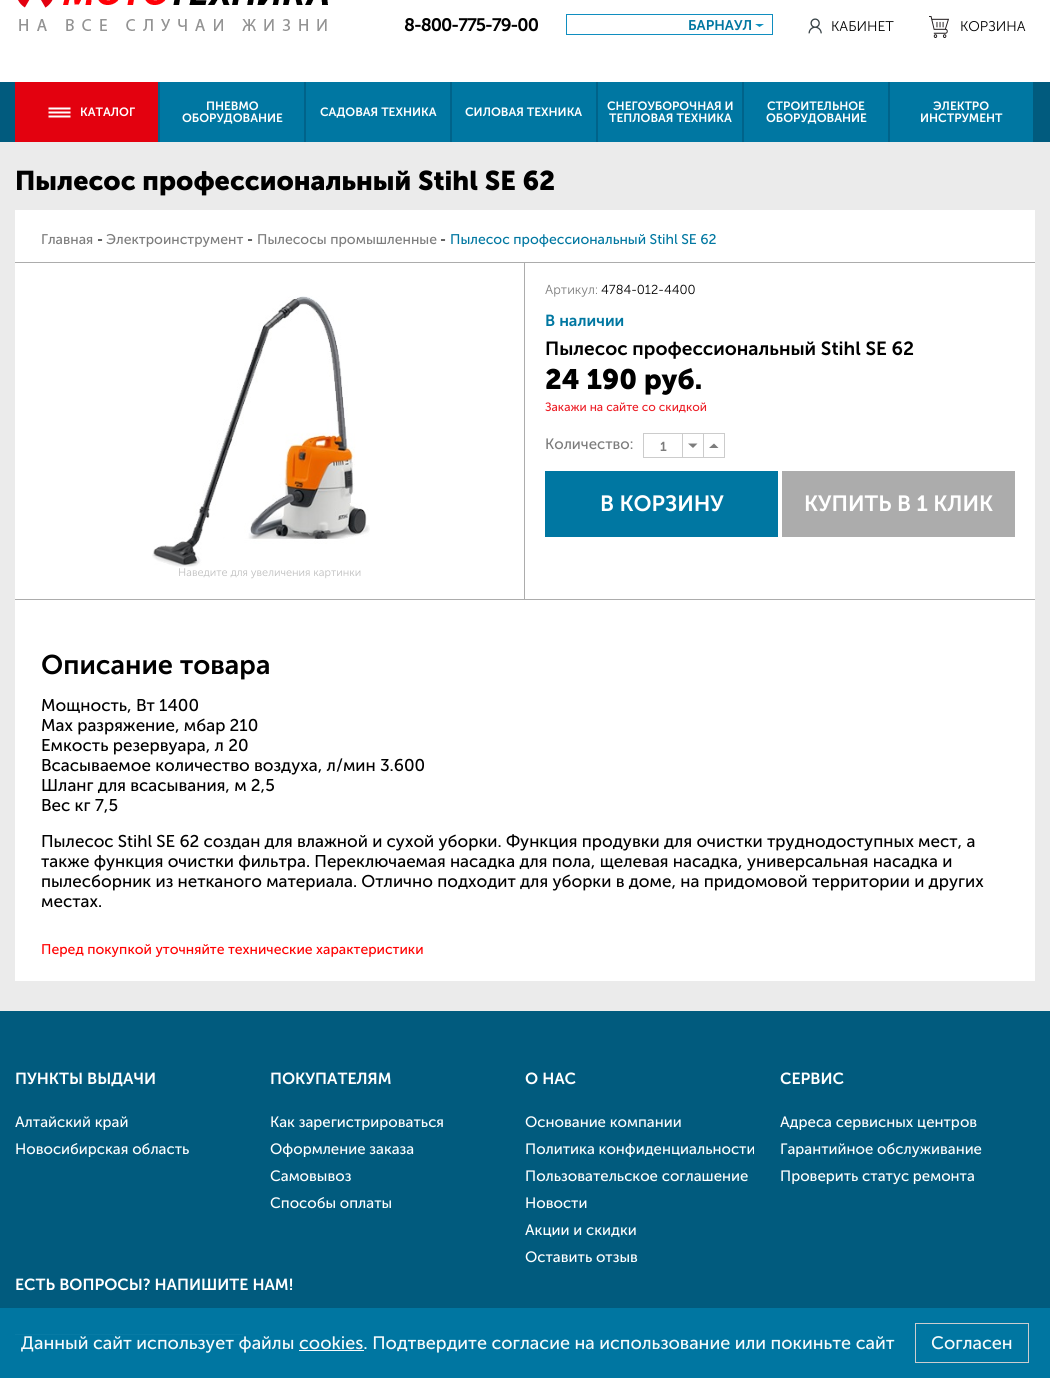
#include <cairo.h>
#include <math.h>
#include <stddef.h>


static void rgb(cairo_t *cr, int r, int g, int b)
{
	cairo_set_source_rgb(cr, r / 255.0, g / 255.0, b / 255.0);
}

static void face(cairo_t *cr, const char *family, double size, int italic, int bold)
{
	cairo_select_font_face(cr, family, italic ? CAIRO_FONT_SLANT_ITALIC : CAIRO_FONT_SLANT_NORMAL,
		bold ? CAIRO_FONT_WEIGHT_BOLD : CAIRO_FONT_WEIGHT_NORMAL);
	cairo_set_font_size(cr, size);
}

static void label(cairo_t *cr, double x, double y, const char *s)
{
	cairo_move_to(cr, x, y);
	cairo_show_text(cr, s);
}

static void tracked(cairo_t *cr, double x, double y, const char *s, double letter, double word)
{
	cairo_move_to(cr, x, y);
	while (*s) {
		char ch[5] = {0};
		int n = 0;
		do ch[n++] = *s++; while ((*s & 0xC0) == 0x80);
		cairo_show_text(cr, ch);
		cairo_rel_move_to(cr, letter + word * (*ch == ' '), 0);
	}
}

static void rect(cairo_t *cr, double x, double y, double w, double h)
{
	cairo_rectangle(cr, x, y, w, h);
	cairo_fill(cr);
}

static void image(cairo_t *cr, const char *path, double x, double y, double w, double h)
{
	cairo_surface_t *image = cairo_image_surface_create_from_png(path);
	cairo_save(cr);
	cairo_set_source_surface(cr, image, x, y);
	cairo_rectangle(cr, x, y, w, h);
	cairo_fill(cr);
	cairo_restore(cr);
	cairo_surface_destroy(image);
}

static void draw(cairo_t *cr) {
	rgb(cr, 235, 235, 235);
	cairo_paint(cr);
	rgb(cr, 255, 255, 255);
	rect(cr, 0, 0, 1050, 82);
	image(cr, "image0.png", 18, 0, 310, 31);
	face(cr, "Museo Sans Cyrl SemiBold", 18, 0, 0);
	rgb(cr, 0, 0, 0);
	tracked(cr, 404, 31, "8-800-775-79-00", -1, 0);
	cairo_rectangle(cr, 566.5, 14.5, 206, 20);
	rgb(cr, 16, 142, 192);
	cairo_set_line_width(cr, 1);
	cairo_stroke(cr);
	rgb(cr, 16, 143, 191);
	cairo_set_fill_rule(cr, CAIRO_FILL_RULE_EVEN_ODD);
	cairo_new_path(cr);
	cairo_move_to(cr, 755, 24);
	cairo_line_to(cr, 764, 24);
	cairo_line_to(cr, 759.5, 27);
	cairo_close_path(cr);
	cairo_fill(cr);
	face(cr, "Museo Sans Cyrl SemiBold", 14, 0, 0);
	rgb(cr, 0, 119, 161);
	label(cr, 688, 30, "БАРНАУЛ");
	image(cr, "image1.png", 808, 18, 14, 16);
	face(cr, "Museo Sans Cyrl Light", 14, 0, 0);
	rgb(cr, 0, 0, 0);
	label(cr, 831, 31, "КАБИНЕТ");
	image(cr, "image2.png", 929, 16, 20, 22);
	label(cr, 960, 31, "КОРЗИНА");
	rgb(cr, 1, 91, 126);
	rect(cr, 0, 82, 1050, 60);
	rgb(cr, 227, 1, 15);
	rect(cr, 15, 82, 143, 60);
	image(cr, "image3.png", 48, 107, 23, 11);
	face(cr, "Museo Sans Cyrl SemiBold", 12, 0, 0);
	rgb(cr, 255, 255, 255);
	label(cr, 80, 116, "КАТАЛОГ");
	rgb(cr, 0, 99, 138);
	rect(cr, 158, 82, 2, 60);
	rgb(cr, 0, 119, 162);
	rect(cr, 160, 82, 144, 60);
	rgb(cr, 255, 255, 255);
	label(cr, 206, 110, "ПНЕВМО");
	label(cr, 182, 122, "ОБОРУДОВАНИЕ");
	rgb(cr, 0, 99, 138);
	rect(cr, 304, 82, 2, 60);
	rgb(cr, 0, 119, 162);
	rect(cr, 306, 82, 144, 60);
	rgb(cr, 255, 255, 255);
	label(cr, 320, 116, "САДОВАЯ ТЕХНИКА");
	rgb(cr, 0, 99, 138);
	rect(cr, 450, 82, 2, 60);
	rgb(cr, 0, 119, 162);
	rect(cr, 452, 82, 144, 60);
	rgb(cr, 255, 255, 255);
	label(cr, 465, 116, "СИЛОВАЯ ТЕХНИКА");
	rgb(cr, 0, 99, 138);
	rect(cr, 596, 82, 2, 60);
	rgb(cr, 0, 119, 162);
	rect(cr, 598, 82, 144, 60);
	rgb(cr, 255, 255, 255);
	label(cr, 607, 110, "СНЕГОУБОРОЧНАЯ И");
	label(cr, 609, 122, "ТЕПЛОВАЯ ТЕХНИКА");
	rgb(cr, 0, 99, 138);
	rect(cr, 742, 82, 2, 60);
	rgb(cr, 0, 119, 162);
	rect(cr, 744, 82, 144, 60);
	rgb(cr, 255, 255, 255);
	label(cr, 767, 110, "СТРОИТЕЛЬНОЕ");
	label(cr, 766, 122, "ОБОРУДОВАНИЕ");
	rgb(cr, 0, 99, 138);
	rect(cr, 888, 82, 2, 60);
	rgb(cr, 0, 119, 162);
	rect(cr, 890, 82, 143, 60);
	rgb(cr, 255, 255, 255);
	label(cr, 933, 110, "ЭЛЕКТРО");
	label(cr, 920, 122, "ИНСТРУМЕНТ");
	face(cr, "Museo Sans Cyrl", 27, 0, 1);
	rgb(cr, 0, 0, 0);
	label(cr, 15, 190, "Пылесос профессиональный Stihl SE 62");
	rgb(cr, 255, 255, 255);
	rect(cr, 15, 210, 1020, 771);
	rgb(cr, 172, 172, 172);
	rect(cr, 15, 262, 1020, 1);
	face(cr, "Museo Sans Cyrl", 14, 0, 0);
	rgb(cr, 124, 124, 124);
	label(cr, 41, 244, "Главная");
	rgb(cr, 0, 0, 0);
	label(cr, 97, 244, "-");
	rgb(cr, 124, 124, 124);
	label(cr, 106, 244, "Электроинструмент");
	rgb(cr, 0, 0, 0);
	label(cr, 247, 244, "-");
	rgb(cr, 124, 124, 124);
	label(cr, 257, 244, "Пылесосы промышленные");
	rgb(cr, 0, 0, 0);
	label(cr, 440, 244, "-");
	rgb(cr, 0, 119, 161);
	label(cr, 450, 244, "Пылесос профессиональный Stihl SE 62");
	rgb(cr, 172, 172, 172);
	rect(cr, 15, 599, 1020, 1);
	face(cr, "Museo Sans Cyrl Light", 13, 0, 0);
	rgb(cr, 124, 124, 124);
	label(cr, 545, 294, "Артикул:");
	rgb(cr, 0, 0, 0);
	label(cr, 601, 294, "4784-012-4400");
	face(cr, "Museo Sans Cyrl SemiBold", 16, 0, 0);
	rgb(cr, 0, 119, 161);
	label(cr, 545, 326, "В наличии");
	face(cr, "Museo Sans Cyrl SemiBold", 19, 0, 0);
	rgb(cr, 0, 0, 0);
	label(cr, 545, 355, "Пылесос профессиональный Stihl SE 62");
	face(cr, "Museo Sans Cyrl", 28, 0, 1);
	label(cr, 545, 389, "24 190 руб.");
	face(cr, "Museo Sans Cyrl", 12, 0, 0);
	rgb(cr, 236, 29, 37);
	label(cr, 545, 411, "Закажи на сайте со скидкой");
	face(cr, "Museo Sans Cyrl", 15, 0, 0);
	rgb(cr, 124, 124, 124);
	label(cr, 545, 449, "Количество:");
	rgb(cr, 204, 204, 204);
	rect(cr, 683, 433, 42, 1);
	rect(cr, 703, 433, 1, 25);
	rect(cr, 683, 457, 21, 1);
	rgb(cr, 125, 125, 125);
	cairo_new_path(cr);
	cairo_move_to(cr, 688, 443.5);
	cairo_line_to(cr, 697.5, 443.5);
	cairo_line_to(cr, 693, 448);
	cairo_close_path(cr);
	cairo_fill(cr);
	cairo_rectangle(cr, 643.5, 433.5, 39, 24);
	rgb(cr, 204, 204, 204);
	cairo_stroke(cr);
	face(cr, "Museo Sans Cyrl SemiBold", 13, 0, 0);
	rgb(cr, 124, 124, 124);
	label(cr, 660, 451, "1");
	rgb(cr, 204, 204, 204);
	rect(cr, 724, 433, 1, 25);
	rect(cr, 704, 457, 21, 1);
	rgb(cr, 125, 125, 125);
	cairo_new_path(cr);
	cairo_move_to(cr, 718.5, 448);
	cairo_line_to(cr, 709, 448);
	cairo_line_to(cr, 714, 443.5);
	cairo_close_path(cr);
	cairo_fill(cr);
	rgb(cr, 0, 119, 162);
	rect(cr, 545, 471, 233, 66);
	face(cr, "Museo Sans Cyrl SemiBold", 22, 0, 0);
	rgb(cr, 255, 255, 255);
	label(cr, 600, 511, "В КОРЗИНУ");
	rgb(cr, 172, 172, 172);
	rect(cr, 782, 471, 233, 66);
	rgb(cr, 255, 255, 255);
	label(cr, 804, 511, "КУПИТЬ В 1 КЛИК");
	rgb(cr, 172, 172, 172);
	rect(cr, 524, 263, 1, 336);
	image(cr, "image4.png", 152, 296, 218, 271);
	face(cr, "Museo Sans Cyrl Light", 11, 0, 0);
	rgb(cr, 190, 190, 190);
	label(cr, 178, 576, "Наведите для увеличения картинки");
	face(cr, "Museo Sans Cyrl SemiBold", 27, 0, 0);
	rgb(cr, 0, 0, 0);
	label(cr, 41, 674, "Описание товара");
	face(cr, "Museo Sans Cyrl", 17, 0, 0);
	label(cr, 41, 711, "Мощность, Вт 1400");
	label(cr, 41, 731, "Max разряжение, мбар 210");
	label(cr, 41, 751, "Емкость резервуара, л 20");
	label(cr, 41, 771, "Всасываемое количество воздуха, л/мин 3.600");
	label(cr, 41, 791, "Шланг для всасывания, м 2,5");
	label(cr, 41, 811, "Вес кг 7,5");
	label(cr, 41, 847, "Пылесос Stihl SE 62 создан для влажной и сухой уборки. Функция продувки для очистки труднодоступных мест, а");
	label(cr, 41, 867, "также функция очистки фильтра. Переключаемая насадка для пола, щелевая насадка, универсальная насадка и");
	label(cr, 41, 887, "пылесборник из нетканого материала. Отлично подходит для уборки в доме, на придомовой территории и других");
	label(cr, 41, 907, "местах.");
	face(cr, "Museo Sans Cyrl", 14, 0, 0);
	rgb(cr, 255, 0, 0);
	label(cr, 41, 954, "Перед покупкой уточняйте технические характеристики");
	rgb(cr, 1, 91, 126);
	rect(cr, 0, 1011, 1050, 297);
	rgb(cr, 0, 118, 161);
	rect(cr, 0, 1308, 1050, 70);
	face(cr, "Museo Sans Cyrl SemiBold", 16, 0, 0);
	rgb(cr, 255, 255, 255);
	label(cr, 15, 1084, "ПУНКТЫ ВЫДАЧИ");
	face(cr, "Museo Sans Cyrl", 15, 0, 0);
	label(cr, 15, 1127, "Алтайский край");
	label(cr, 15, 1154, "Новосибирская область");
	face(cr, "Museo Sans Cyrl SemiBold", 16, 0, 0);
	label(cr, 270, 1084, "ПОКУПАТЕЛЯМ");
	face(cr, "Museo Sans Cyrl", 15, 0, 0);
	label(cr, 270, 1127, "Как зарегистрироваться");
	label(cr, 270, 1154, "Оформление заказа");
	label(cr, 270, 1181, "Самовывоз");
	label(cr, 270, 1208, "Способы оплаты");
	face(cr, "Museo Sans Cyrl SemiBold", 16, 0, 0);
	label(cr, 525, 1084, "О НАС");
	face(cr, "Museo Sans Cyrl", 15, 0, 0);
	label(cr, 525, 1127, "Основание компании");
	label(cr, 525, 1154, "Политика конфиденциальности");
	label(cr, 525, 1181, "Пользовательское соглашение");
	label(cr, 525, 1208, "Новости");
	label(cr, 525, 1235, "Акции и скидки");
	label(cr, 525, 1262, "Оставить отзыв");
	face(cr, "Museo Sans Cyrl SemiBold", 16, 0, 0);
	label(cr, 780, 1084, "СЕРВИС");
	face(cr, "Museo Sans Cyrl", 15, 0, 0);
	label(cr, 780, 1127, "Адреса сервисных центров");
	label(cr, 780, 1154, "Гарантийное обслуживание");
	label(cr, 780, 1181, "Проверить статус ремонта");
	face(cr, "Museo Sans Cyrl SemiBold", 16, 0, 0);
	label(cr, 15, 1290, "ЕСТЬ ВОПРОСЫ? НАПИШИТЕ НАМ!");
	rgb(cr, 8, 123, 165);
	rect(cr, 15, 1334, 228, 1);
	face(cr, "Museo Sans Cyrl", 18, 0, 0);
	rgb(cr, 247, 251, 252);
	label(cr, 21, 1349, "Данный сайт использует файлы");
	rgb(cr, 247, 250, 251);
	rect(cr, 299, 1350, 65, 1);
	rgb(cr, 247, 251, 252);
	label(cr, 299, 1349, "cookies. Подтвердите согласие на использование или покиньте сайт");
	cairo_rectangle(cr, 915.5, 1323.5, 113, 39);
	rgb(cr, 203, 205, 207);
	cairo_stroke(cr);
	rgb(cr, 247, 251, 252);
	label(cr, 931, 1349, "Согласен");
}

int main(void) {
	cairo_surface_t *surface = cairo_image_surface_create(CAIRO_FORMAT_RGB24, 1050, 1378);
	cairo_t *cr = cairo_create(surface);
	cairo_font_options_t *options = cairo_font_options_create();
	cairo_font_options_set_hint_metrics(options, CAIRO_HINT_METRICS_OFF);
	cairo_font_options_set_hint_style(options, CAIRO_HINT_STYLE_NONE);
	cairo_set_font_options(cr, options);
	cairo_set_miter_limit(cr, 4);
	draw(cr);
	cairo_surface_write_to_png(surface, "render.png");
	cairo_font_options_destroy(options);
	cairo_destroy(cr);
	cairo_surface_destroy(surface);
	return 0;
}
